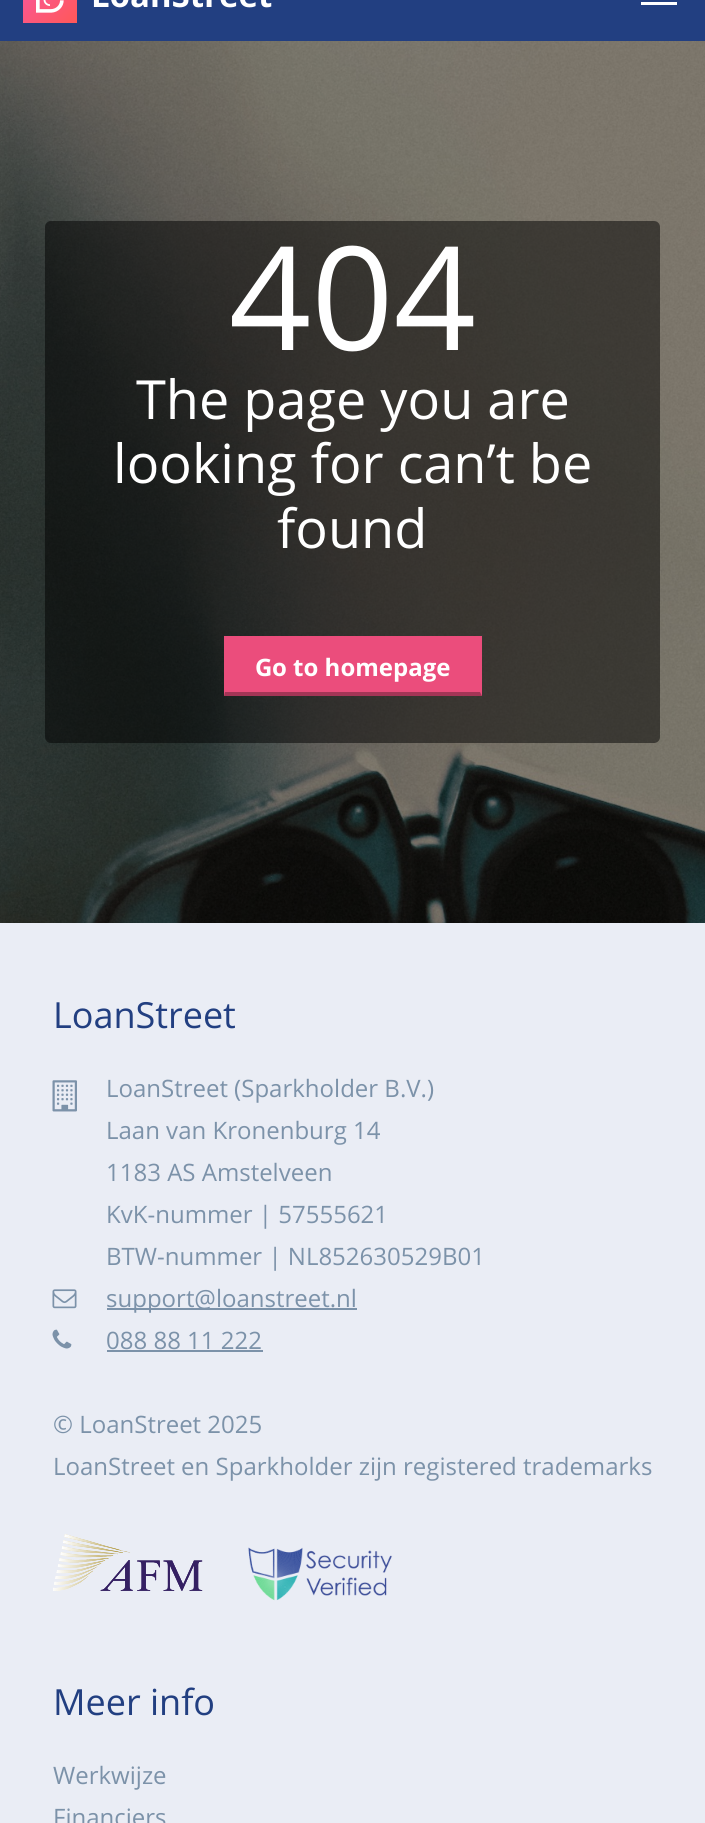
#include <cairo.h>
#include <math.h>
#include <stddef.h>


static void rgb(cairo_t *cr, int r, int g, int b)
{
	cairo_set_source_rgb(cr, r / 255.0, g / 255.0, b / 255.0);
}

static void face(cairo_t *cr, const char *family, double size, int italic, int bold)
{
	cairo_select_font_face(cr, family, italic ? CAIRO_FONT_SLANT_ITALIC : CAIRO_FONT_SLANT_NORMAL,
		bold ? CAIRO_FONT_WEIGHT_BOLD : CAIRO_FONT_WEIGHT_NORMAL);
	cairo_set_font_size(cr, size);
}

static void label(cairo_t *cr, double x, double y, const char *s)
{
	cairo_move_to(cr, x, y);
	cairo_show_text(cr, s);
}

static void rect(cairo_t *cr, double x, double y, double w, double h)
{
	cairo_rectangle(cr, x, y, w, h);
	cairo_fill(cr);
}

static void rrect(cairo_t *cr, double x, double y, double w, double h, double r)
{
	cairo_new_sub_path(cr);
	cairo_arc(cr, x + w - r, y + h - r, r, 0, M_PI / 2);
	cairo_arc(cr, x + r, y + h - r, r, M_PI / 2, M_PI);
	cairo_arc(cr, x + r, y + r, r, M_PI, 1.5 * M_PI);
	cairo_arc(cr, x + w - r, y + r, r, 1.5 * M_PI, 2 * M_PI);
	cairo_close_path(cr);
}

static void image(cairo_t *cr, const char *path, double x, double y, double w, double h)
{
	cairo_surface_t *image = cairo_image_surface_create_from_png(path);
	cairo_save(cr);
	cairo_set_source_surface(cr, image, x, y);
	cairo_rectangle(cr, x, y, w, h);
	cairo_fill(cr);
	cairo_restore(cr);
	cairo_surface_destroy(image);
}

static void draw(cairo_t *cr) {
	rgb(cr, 255, 255, 255);
	cairo_paint(cr);
	image(cr, "image0.png", 0, 41, 705, 882);
	rgb(cr, 34, 63, 129);
	rect(cr, 0, 0, 705, 41);
	image(cr, "image1.png", 23, 0, 249, 23);
	rgb(cr, 255, 255, 255);
	rect(cr, 641, 2, 36, 3);
	cairo_set_source_rgba(cr, 0, 0, 0, 0.5);
	rrect(cr, 45, 221, 615, 522, 6);
	cairo_fill(cr);
	face(cr, "Open Sans", 144, 0, 0);
	rgb(cr, 255, 255, 255);
	label(cr, 229, 350, "404");
	face(cr, "Open Sans", 54, 0, 0);
	label(cr, 136, 419, "The page you are");
	label(cr, 113, 483, "looking for can’t be");
	label(cr, 277, 548, "found");
	rgb(cr, 235, 77, 124);
	rect(cr, 224, 636, 258, 60);
	rgb(cr, 164, 53, 86);
	cairo_new_path(cr);
	cairo_move_to(cr, 482, 696);
	cairo_line_to(cr, 224, 696);
	cairo_line_to(cr, 225, 692);
	cairo_line_to(cr, 480, 692);
	cairo_close_path(cr);
	cairo_fill(cr);
	face(cr, "Noto Sans", 24, 0, 1);
	rgb(cr, 255, 255, 255);
	label(cr, 255, 676, "G");
	face(cr, "Open Sans", 24, 0, 1);
	label(cr, 272, 676, "o to homepage");
	rgb(cr, 234, 237, 245);
	rect(cr, 0, 923, 705, 900);
	face(cr, "Open Sans", 36, 0, 0);
	rgb(cr, 34, 63, 129);
	label(cr, 53, 1028, "LoanStreet");
	image(cr, "image2.png", 52, 1080, 25, 32);
	face(cr, "Open Sans", 24, 0, 0);
	rgb(cr, 124, 146, 169);
	label(cr, 106, 1097, "LoanStreet (Sparkholder B.V.)");
	label(cr, 106, 1139, "Laan van Kronenburg 14");
	label(cr, 106, 1181, "1183 AS Amstelveen");
	label(cr, 106, 1223, "KvK-nummer | 57555621");
	label(cr, 106, 1265, "BTW-nummer | NL852630529B01");
	image(cr, "image3.png", 52, 1289, 25, 20);
	rect(cr, 107, 1308, 250, 2);
	label(cr, 106, 1307, "support@loanstreet.nl");
	image(cr, "image4.png", 52, 1329, 20, 20);
	label(cr, 106, 1349, "088 88 11 222");
	rect(cr, 107, 1350, 156, 2);
	label(cr, 53, 1433, "© LoanStreet 2025");
	label(cr, 53, 1475, "LoanStreet en Sparkholder zijn registered trademarks");
	image(cr, "image5.png", 53, 1534, 150, 57);
	image(cr, "image6.png", 248, 1547, 145, 54);
	face(cr, "Open Sans", 36, 0, 0);
	rgb(cr, 34, 63, 129);
	label(cr, 53, 1715, "Meer info");
	face(cr, "Open Sans", 24, 0, 0);
	rgb(cr, 124, 146, 169);
	label(cr, 53, 1784, "Werkwijze");
	label(cr, 53, 1826, "Financiers");
}

int main(void) {
	cairo_surface_t *surface = cairo_image_surface_create(CAIRO_FORMAT_RGB24, 705, 1823);
	cairo_t *cr = cairo_create(surface);
	cairo_font_options_t *options = cairo_font_options_create();
	cairo_font_options_set_hint_metrics(options, CAIRO_HINT_METRICS_OFF);
	cairo_font_options_set_hint_style(options, CAIRO_HINT_STYLE_NONE);
	cairo_set_font_options(cr, options);
	cairo_set_miter_limit(cr, 4);
	draw(cr);
	cairo_surface_write_to_png(surface, "render.png");
	cairo_font_options_destroy(options);
	cairo_destroy(cr);
	cairo_surface_destroy(surface);
	return 0;
}
